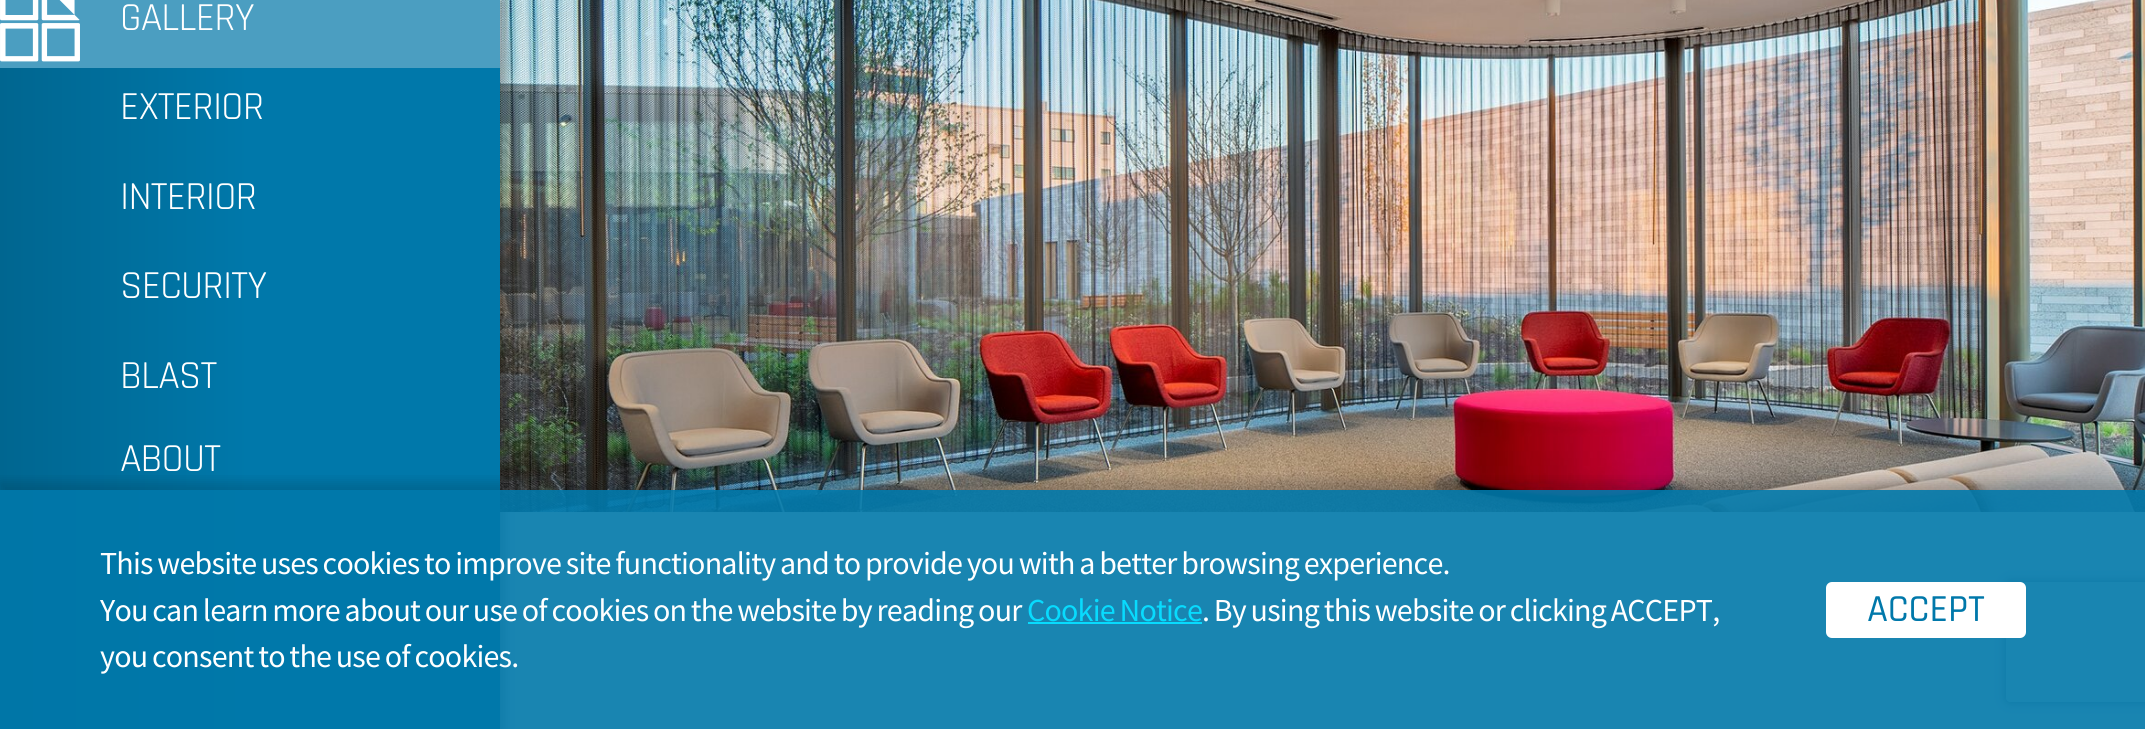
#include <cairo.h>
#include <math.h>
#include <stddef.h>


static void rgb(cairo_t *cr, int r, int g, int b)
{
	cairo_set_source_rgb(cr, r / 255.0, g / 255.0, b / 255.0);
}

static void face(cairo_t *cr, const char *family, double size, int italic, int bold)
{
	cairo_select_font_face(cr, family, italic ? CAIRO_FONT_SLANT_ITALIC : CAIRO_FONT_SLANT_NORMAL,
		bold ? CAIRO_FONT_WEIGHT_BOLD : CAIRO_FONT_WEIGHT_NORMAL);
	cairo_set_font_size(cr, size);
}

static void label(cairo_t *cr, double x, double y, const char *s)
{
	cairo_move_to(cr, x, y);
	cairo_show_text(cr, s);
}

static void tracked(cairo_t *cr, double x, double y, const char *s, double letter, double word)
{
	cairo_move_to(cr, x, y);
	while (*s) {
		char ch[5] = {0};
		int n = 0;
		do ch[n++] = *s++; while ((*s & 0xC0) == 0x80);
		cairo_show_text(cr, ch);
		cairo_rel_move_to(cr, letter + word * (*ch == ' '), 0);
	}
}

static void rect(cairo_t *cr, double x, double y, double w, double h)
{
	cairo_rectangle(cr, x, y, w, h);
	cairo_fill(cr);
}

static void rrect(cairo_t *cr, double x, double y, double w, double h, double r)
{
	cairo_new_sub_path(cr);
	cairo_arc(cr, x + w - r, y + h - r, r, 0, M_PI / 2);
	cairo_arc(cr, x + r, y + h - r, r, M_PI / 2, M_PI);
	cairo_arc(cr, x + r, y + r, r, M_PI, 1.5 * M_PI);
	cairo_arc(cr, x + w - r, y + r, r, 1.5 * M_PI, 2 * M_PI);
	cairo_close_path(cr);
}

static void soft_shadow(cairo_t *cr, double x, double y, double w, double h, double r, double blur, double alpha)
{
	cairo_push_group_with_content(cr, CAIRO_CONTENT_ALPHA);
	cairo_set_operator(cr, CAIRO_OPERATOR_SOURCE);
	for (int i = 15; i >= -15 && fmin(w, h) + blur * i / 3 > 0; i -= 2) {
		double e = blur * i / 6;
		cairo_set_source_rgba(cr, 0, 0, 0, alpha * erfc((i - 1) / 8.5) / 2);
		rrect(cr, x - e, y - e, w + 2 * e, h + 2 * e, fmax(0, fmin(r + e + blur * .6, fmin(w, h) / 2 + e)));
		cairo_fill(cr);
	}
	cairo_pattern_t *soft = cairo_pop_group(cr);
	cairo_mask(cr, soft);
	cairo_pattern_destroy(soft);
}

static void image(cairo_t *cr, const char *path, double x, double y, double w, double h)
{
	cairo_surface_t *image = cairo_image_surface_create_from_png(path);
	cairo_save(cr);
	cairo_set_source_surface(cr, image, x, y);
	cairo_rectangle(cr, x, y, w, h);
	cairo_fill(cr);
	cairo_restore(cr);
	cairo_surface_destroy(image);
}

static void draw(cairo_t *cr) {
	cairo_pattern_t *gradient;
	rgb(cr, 251, 250, 248);
	cairo_paint(cr);
	image(cr, "image1.png", 500, 0, 1645, 512);
	rgb(cr, 0, 0, 0);
	soft_shadow(cr, 4, 0, 500, 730, 0, 5, 0.35);
	gradient = cairo_pattern_create_linear(0, 365, 500, 365);
	cairo_pattern_add_color_stop_rgba(gradient, 0, 0, 0.4, 0.565, 1);
	cairo_pattern_add_color_stop_rgba(gradient, 0.5, 0, 0.471, 0.667, 1);
	cairo_set_source(cr, gradient);
	cairo_pattern_destroy(gradient);
	rect(cr, 0, 68, 500, 661);
	rgb(cr, 75, 158, 193);
	rect(cr, 0, 0, 500, 68);
	image(cr, "image0.png", 0, 0, 80, 62);
	face(cr, "Rajdhani", 40, 0, 0);
	rgb(cr, 255, 255, 255);
	tracked(cr, 120, 30, "GALLERY", -0.78, 0);
	tracked(cr, 120, 119, "EXTERIOR", -0.78, 0);
	tracked(cr, 120, 209, "INTERIOR", -0.78, 0);
	tracked(cr, 120, 298, "SECURITY", -0.78, 0);
	tracked(cr, 120, 388, "BLAST", -0.78, 0);
	tracked(cr, 120, 471, "ABOUT", -0.78, 0);
	cairo_save(cr);
	cairo_rectangle(cr, 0, 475, 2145, 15);
	cairo_clip(cr);
	rgb(cr, 0, 0, 0);
	soft_shadow(cr, 0, 482, 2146, 240, 0, 6, 0.15);
	cairo_restore(cr);
	cairo_save(cr);
	cairo_set_fill_rule(cr, CAIRO_FILL_RULE_EVEN_ODD);
	cairo_new_path(cr);
	cairo_move_to(cr, 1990, 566);
	cairo_line_to(cr, 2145, 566);
	cairo_line_to(cr, 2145, 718);
	cairo_line_to(cr, 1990, 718);
	cairo_close_path(cr);
	cairo_move_to(cr, 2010, 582);
	cairo_line_to(cr, 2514, 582);
	cairo_curve_to(cr, 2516, 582, 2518, 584, 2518, 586);
	cairo_line_to(cr, 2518, 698);
	cairo_curve_to(cr, 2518, 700, 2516, 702, 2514, 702);
	cairo_line_to(cr, 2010, 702);
	cairo_curve_to(cr, 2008, 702, 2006, 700, 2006, 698);
	cairo_line_to(cr, 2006, 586);
	cairo_curve_to(cr, 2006, 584, 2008, 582, 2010, 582);
	cairo_close_path(cr);
	cairo_clip(cr);
	rgb(cr, 128, 128, 128);
	soft_shadow(cr, 2006, 582, 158, 120, 4, 5, 1);
	cairo_restore(cr);
	cairo_set_source_rgba(cr, 0, 0.471, 0.667, 0.9);
	rect(cr, 0, 490, 2145, 239);
	face(cr, "Source Sans Pro", 32, 0, 0);
	rgb(cr, 255, 255, 255);
	tracked(cr, 100, 574, "This website uses cookies to improve site functionality and to provide you with a better browsing experience.", -0.78, -1);
	tracked(cr, 100, 621, "You can learn more about our use of cookies on the website by reading our", -0.78, -1);
	rgb(cr, 8, 219, 254);
	tracked(cr, 1027, 621, "Cookie Notice", -0.78, -1);
	rect(cr, 1028, 622, 174, 2);
	rgb(cr, 255, 255, 255);
	tracked(cr, 1202, 621, ". By using this website or clicking ACCEPT,", -0.78, -1);
	tracked(cr, 100, 667, "you consent to the use of cookies.", -0.78, -1);
	rrect(cr, 1826, 582, 200, 56, 6);
	cairo_fill(cr);
	face(cr, "Rajdhani Medium", 38.5, 0, 0);
	rgb(cr, 0, 120, 170);
	label(cr, 1867, 621, "ACCEPT");
}

int main(void) {
	cairo_surface_t *surface = cairo_image_surface_create(CAIRO_FORMAT_RGB24, 2145, 729);
	cairo_t *cr = cairo_create(surface);
	cairo_font_options_t *options = cairo_font_options_create();
	cairo_font_options_set_hint_metrics(options, CAIRO_HINT_METRICS_OFF);
	cairo_font_options_set_hint_style(options, CAIRO_HINT_STYLE_NONE);
	cairo_set_font_options(cr, options);
	cairo_set_miter_limit(cr, 4);
	draw(cr);
	cairo_surface_write_to_png(surface, "render.png");
	cairo_font_options_destroy(options);
	cairo_destroy(cr);
	cairo_surface_destroy(surface);
	return 0;
}
